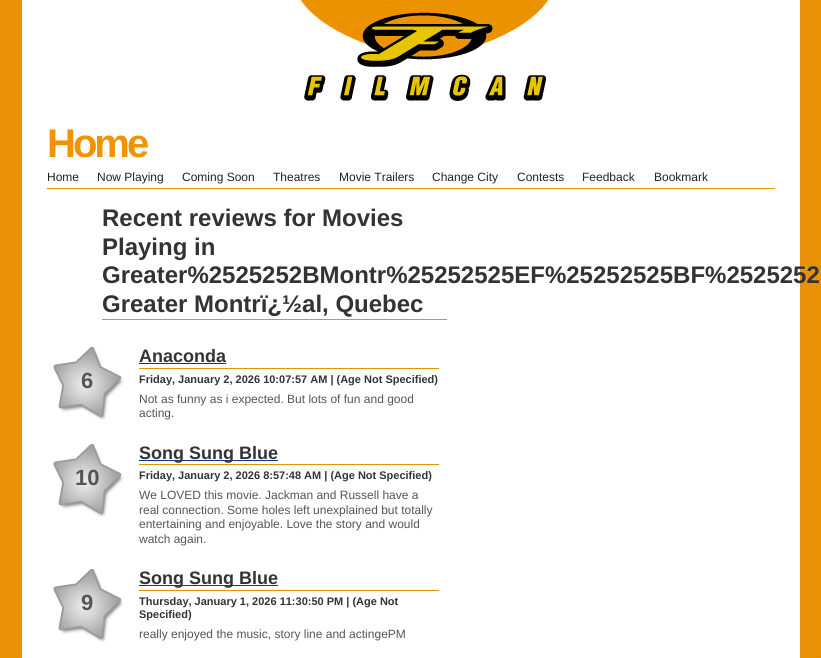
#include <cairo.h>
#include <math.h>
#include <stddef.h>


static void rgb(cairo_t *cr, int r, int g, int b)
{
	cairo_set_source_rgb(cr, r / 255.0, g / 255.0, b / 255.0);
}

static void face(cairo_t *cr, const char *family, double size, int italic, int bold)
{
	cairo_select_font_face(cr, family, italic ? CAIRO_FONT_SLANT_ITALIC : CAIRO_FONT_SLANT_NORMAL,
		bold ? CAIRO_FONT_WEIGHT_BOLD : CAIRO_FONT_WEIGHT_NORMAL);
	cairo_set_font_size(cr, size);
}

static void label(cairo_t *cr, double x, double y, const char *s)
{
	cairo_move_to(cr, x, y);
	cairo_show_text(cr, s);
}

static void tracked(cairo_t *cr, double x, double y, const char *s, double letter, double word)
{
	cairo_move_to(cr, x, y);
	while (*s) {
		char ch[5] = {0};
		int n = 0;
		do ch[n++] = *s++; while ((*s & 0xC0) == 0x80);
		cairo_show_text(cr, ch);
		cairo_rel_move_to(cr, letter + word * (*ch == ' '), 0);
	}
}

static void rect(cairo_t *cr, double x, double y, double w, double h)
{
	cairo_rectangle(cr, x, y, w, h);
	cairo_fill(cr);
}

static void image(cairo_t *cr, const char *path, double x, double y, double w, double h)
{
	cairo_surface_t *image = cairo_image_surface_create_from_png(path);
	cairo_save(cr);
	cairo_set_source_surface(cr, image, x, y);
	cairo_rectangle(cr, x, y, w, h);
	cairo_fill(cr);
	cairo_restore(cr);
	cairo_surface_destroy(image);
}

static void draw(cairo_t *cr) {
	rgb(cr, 255, 255, 255);
	cairo_paint(cr);
	image(cr, "image0.png", 0, 0, 821, 658);
	rgb(cr, 255, 255, 255);
	rect(cr, 22, 0, 778, 658);
	image(cr, "image1.png", 300, 0, 249, 101);
	face(cr, "Liberation Sans", 40, 0, 1);
	rgb(cr, 239, 148, 0);
	tracked(cr, 47, 157, "Home", -3, 0);
	rgb(cr, 229, 148, 0);
	rect(cr, 47, 188, 728, 1);
	face(cr, "Liberation Sans", 12, 0, 0);
	rgb(cr, 34, 34, 34);
	label(cr, 47, 181, "Home");
	label(cr, 97, 181, "Now Playing");
	label(cr, 182, 181, "Coming Soon");
	label(cr, 273, 181, "Theatres");
	label(cr, 339, 181, "Movie Trailers");
	label(cr, 432, 181, "Change City");
	label(cr, 517, 181, "Contests");
	label(cr, 582, 181, "Feedback");
	label(cr, 654, 181, "Bookmark");
	rgb(cr, 229, 148, 0);
	rect(cr, 102, 319, 345, 1);
	face(cr, "Liberation Sans", 24, 0, 1);
	rgb(cr, 51, 51, 51);
	label(cr, 102, 226, "Recent reviews for Movies");
	label(cr, 102, 255, "Playing in");
	label(cr, 102, 283, "Greater%2525252BMontr%25252525EF%25252525BF%2525252");
	label(cr, 102, 312, "Greater Montrï¿½al, Quebec");
	image(cr, "image2.png", 53, 346, 71, 74);
	face(cr, "Liberation Sans", 22, 0, 1);
	rgb(cr, 85, 85, 85);
	label(cr, 81, 388, "6");
	rgb(cr, 229, 148, 0);
	rect(cr, 139, 368, 300, 1);
	face(cr, "Liberation Sans", 18, 0, 1);
	rgb(cr, 51, 51, 51);
	label(cr, 139, 362, "Anaconda");
	rgb(cr, 17, 51, 153);
	rect(cr, 139, 363, 87, 1);
	face(cr, "Liberation Sans", 11, 0, 1);
	rgb(cr, 51, 51, 51);
	label(cr, 139, 383, "Friday, January 2, 2026 10:07:57 AM | (Age Not Specified)");
	face(cr, "Liberation Sans", 12, 0, 0);
	rgb(cr, 85, 85, 85);
	label(cr, 139, 403, "Not as funny as i expected. But lots of fun and good");
	label(cr, 139, 417, "acting.");
	image(cr, "image2.png", 53, 443, 71, 74);
	face(cr, "Liberation Sans", 22, 0, 1);
	label(cr, 75, 485, "10");
	rgb(cr, 229, 148, 0);
	rect(cr, 139, 464, 300, 1);
	rgb(cr, 17, 51, 153);
	rect(cr, 139, 460, 139, 1);
	face(cr, "Liberation Sans", 18, 0, 1);
	rgb(cr, 51, 51, 51);
	label(cr, 139, 459, "Song Sung Blue");
	face(cr, "Liberation Sans", 11, 0, 1);
	label(cr, 139, 479, "Friday, January 2, 2026 8:57:48 AM | (Age Not Specified)");
	face(cr, "Liberation Sans", 12, 0, 0);
	rgb(cr, 85, 85, 85);
	label(cr, 139, 499, "We LOVED this movie. Jackman and Russell have a");
	label(cr, 139, 514, "real connection. Some holes left unexplained but totally");
	label(cr, 139, 528, "entertaining and enjoyable. Love the story and would");
	label(cr, 139, 543, "watch again.");
	image(cr, "image2.png", 53, 568, 71, 74);
	face(cr, "Liberation Sans", 22, 0, 1);
	label(cr, 81, 610, "9");
	rgb(cr, 229, 148, 0);
	rect(cr, 139, 590, 300, 1);
	rgb(cr, 17, 51, 153);
	rect(cr, 139, 585, 139, 1);
	face(cr, "Liberation Sans", 18, 0, 1);
	rgb(cr, 51, 51, 51);
	label(cr, 139, 584, "Song Sung Blue");
	face(cr, "Liberation Sans", 11, 0, 1);
	label(cr, 139, 605, "Thursday, January 1, 2026 11:30:50 PM | (Age Not");
	label(cr, 139, 618, "Specified)");
	face(cr, "Liberation Sans", 12, 0, 0);
	rgb(cr, 85, 85, 85);
	label(cr, 139, 638, "really enjoyed the music, story line and actingePM");
}

int main(void) {
	cairo_surface_t *surface = cairo_image_surface_create(CAIRO_FORMAT_RGB24, 821, 658);
	cairo_t *cr = cairo_create(surface);
	cairo_font_options_t *options = cairo_font_options_create();
	cairo_font_options_set_hint_metrics(options, CAIRO_HINT_METRICS_OFF);
	cairo_font_options_set_hint_style(options, CAIRO_HINT_STYLE_NONE);
	cairo_set_font_options(cr, options);
	cairo_set_miter_limit(cr, 4);
	draw(cr);
	cairo_surface_write_to_png(surface, "render.png");
	cairo_font_options_destroy(options);
	cairo_destroy(cr);
	cairo_surface_destroy(surface);
	return 0;
}
